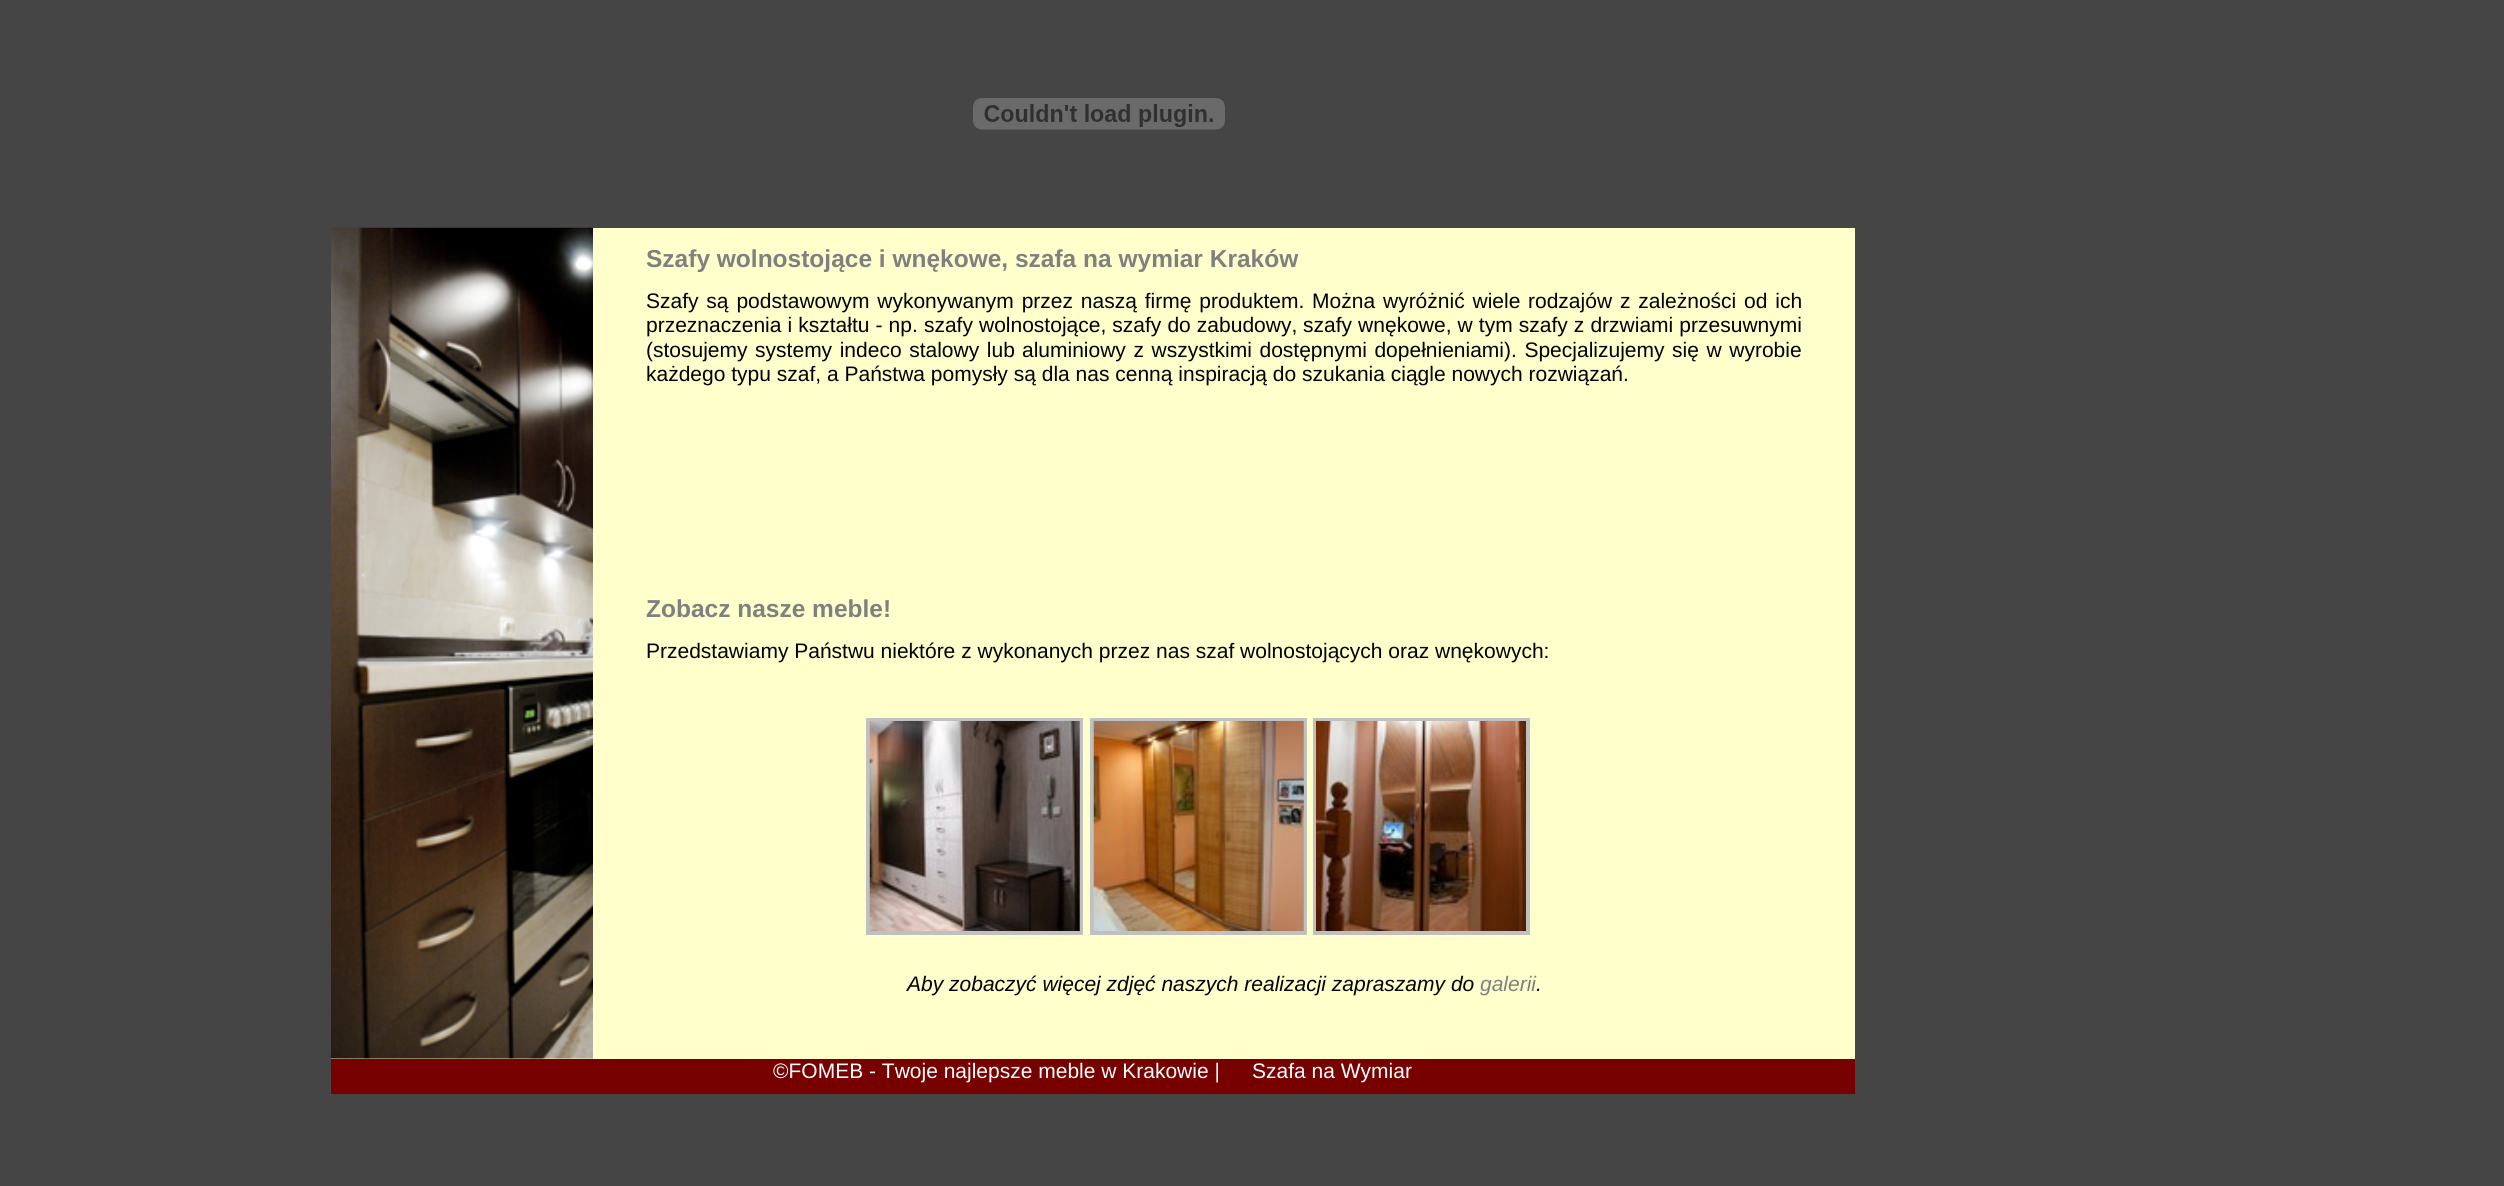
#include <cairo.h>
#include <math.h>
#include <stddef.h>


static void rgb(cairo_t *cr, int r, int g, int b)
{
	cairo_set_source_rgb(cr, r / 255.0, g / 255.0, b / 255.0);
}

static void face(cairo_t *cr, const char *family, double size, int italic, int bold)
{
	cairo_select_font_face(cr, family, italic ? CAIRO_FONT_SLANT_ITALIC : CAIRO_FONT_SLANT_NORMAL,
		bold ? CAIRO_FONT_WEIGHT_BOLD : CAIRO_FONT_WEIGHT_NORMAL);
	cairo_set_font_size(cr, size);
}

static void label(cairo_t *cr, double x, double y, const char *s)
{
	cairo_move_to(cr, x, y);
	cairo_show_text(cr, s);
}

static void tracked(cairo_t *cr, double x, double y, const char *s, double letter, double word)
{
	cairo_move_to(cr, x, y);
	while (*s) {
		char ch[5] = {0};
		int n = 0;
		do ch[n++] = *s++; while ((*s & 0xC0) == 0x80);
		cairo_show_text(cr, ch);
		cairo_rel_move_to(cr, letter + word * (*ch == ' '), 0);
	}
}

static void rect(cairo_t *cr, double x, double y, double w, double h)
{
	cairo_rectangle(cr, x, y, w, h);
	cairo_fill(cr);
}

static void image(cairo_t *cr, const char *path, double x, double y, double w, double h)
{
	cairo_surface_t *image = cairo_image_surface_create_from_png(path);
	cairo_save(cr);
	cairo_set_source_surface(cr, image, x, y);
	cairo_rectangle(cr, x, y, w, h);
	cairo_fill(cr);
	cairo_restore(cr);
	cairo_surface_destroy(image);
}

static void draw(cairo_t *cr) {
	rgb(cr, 69, 69, 69);
	cairo_paint(cr);
	image(cr, "image0.png", 973, 98, 252, 32);
	rgb(cr, 255, 255, 204);
	rect(cr, 331, 1058, 262, 1);
	image(cr, "image1.png", 330, 227, 264, 832);
	rect(cr, 593, 228, 1262, 831);
	face(cr, "Liberation Sans", 24.5, 0, 1);
	rgb(cr, 128, 128, 128);
	label(cr, 646, 267, "Szafy wolnostojące i wnękowe, szafa na wymiar Kraków");
	face(cr, "Liberation Sans", 21, 0, 0);
	rgb(cr, 0, 0, 0);
	tracked(cr, 646, 308, "Szafy są podstawowym wykonywanym przez naszą firmę produktem. Można wyróżnić wiele", 0, 2);
	tracked(cr, 1528, 308, "rodzajów z zależności od ich", 0, 2);
	tracked(cr, 646, 332, "przeznaczenia i kształtu - np. szafy wolnostojące, szafy do zabudowy,", 0, 0.25);
	tracked(cr, 1303, 332, "szafy wnękowe, w tym szafy z drzwiami przesuwnymi", 0, 0.25);
	tracked(cr, 646, 357, "(stosujemy systemy indeco stalowy lub", 0, 1.75);
	tracked(cr, 1022, 357, "aluminiowy z wszystkimi dostępnymi dopełnieniami). Specjalizujemy się w wyrobie", 0, 1.75);
	label(cr, 646, 381, "każdego typu szaf, a Państwa pomysły są dla nas cenną inspiracją do szukania ciągle nowych rozwiązań.");
	face(cr, "Liberation Sans", 24.5, 0, 1);
	rgb(cr, 128, 128, 128);
	label(cr, 646, 617, "Zobacz nasze meble!");
	face(cr, "Liberation Sans", 21, 0, 0);
	rgb(cr, 0, 0, 0);
	label(cr, 646, 658, "Przedstawiamy Państwu niektóre z wykonanych przez nas szaf wolnostojących oraz wnękowych:");
	cairo_rectangle(cr, 868, 720, 213, 213);
	rgb(cr, 192, 192, 192);
	cairo_set_line_width(cr, 4);
	cairo_stroke(cr);
	cairo_rectangle(cr, 1092, 720, 213, 213);
	cairo_stroke(cr);
	cairo_rectangle(cr, 1315, 720, 213, 213);
	cairo_stroke(cr);
	image(cr, "image2.png", 869, 721, 211, 210);
	image(cr, "image3.png", 1093, 721, 211, 210);
	image(cr, "image4.png", 1316, 721, 210, 210);
	face(cr, "Liberation Sans", 21, 1, 0);
	rgb(cr, 0, 0, 0);
	label(cr, 907, 991, "Aby zobaczyć więcej zdjęć naszych realizacji zapraszamy do");
	rgb(cr, 128, 128, 128);
	label(cr, 1480, 991, "galerii");
	rgb(cr, 0, 0, 0);
	label(cr, 1536, 991, ".");
	rgb(cr, 119, 0, 0);
	rect(cr, 331, 1059, 1524, 35);
	face(cr, "Liberation Sans", 21, 0, 0);
	rgb(cr, 255, 255, 255);
	label(cr, 773, 1078, "©FOMEB - Twoje najlepsze meble w Krakowie |");
	label(cr, 1252, 1078, "Szafa na Wymiar");
}

int main(void) {
	cairo_surface_t *surface = cairo_image_surface_create(CAIRO_FORMAT_RGB24, 2504, 1186);
	cairo_t *cr = cairo_create(surface);
	cairo_font_options_t *options = cairo_font_options_create();
	cairo_font_options_set_hint_metrics(options, CAIRO_HINT_METRICS_OFF);
	cairo_font_options_set_hint_style(options, CAIRO_HINT_STYLE_NONE);
	cairo_set_font_options(cr, options);
	cairo_set_miter_limit(cr, 4);
	draw(cr);
	cairo_surface_write_to_png(surface, "render.png");
	cairo_font_options_destroy(options);
	cairo_destroy(cr);
	cairo_surface_destroy(surface);
	return 0;
}
